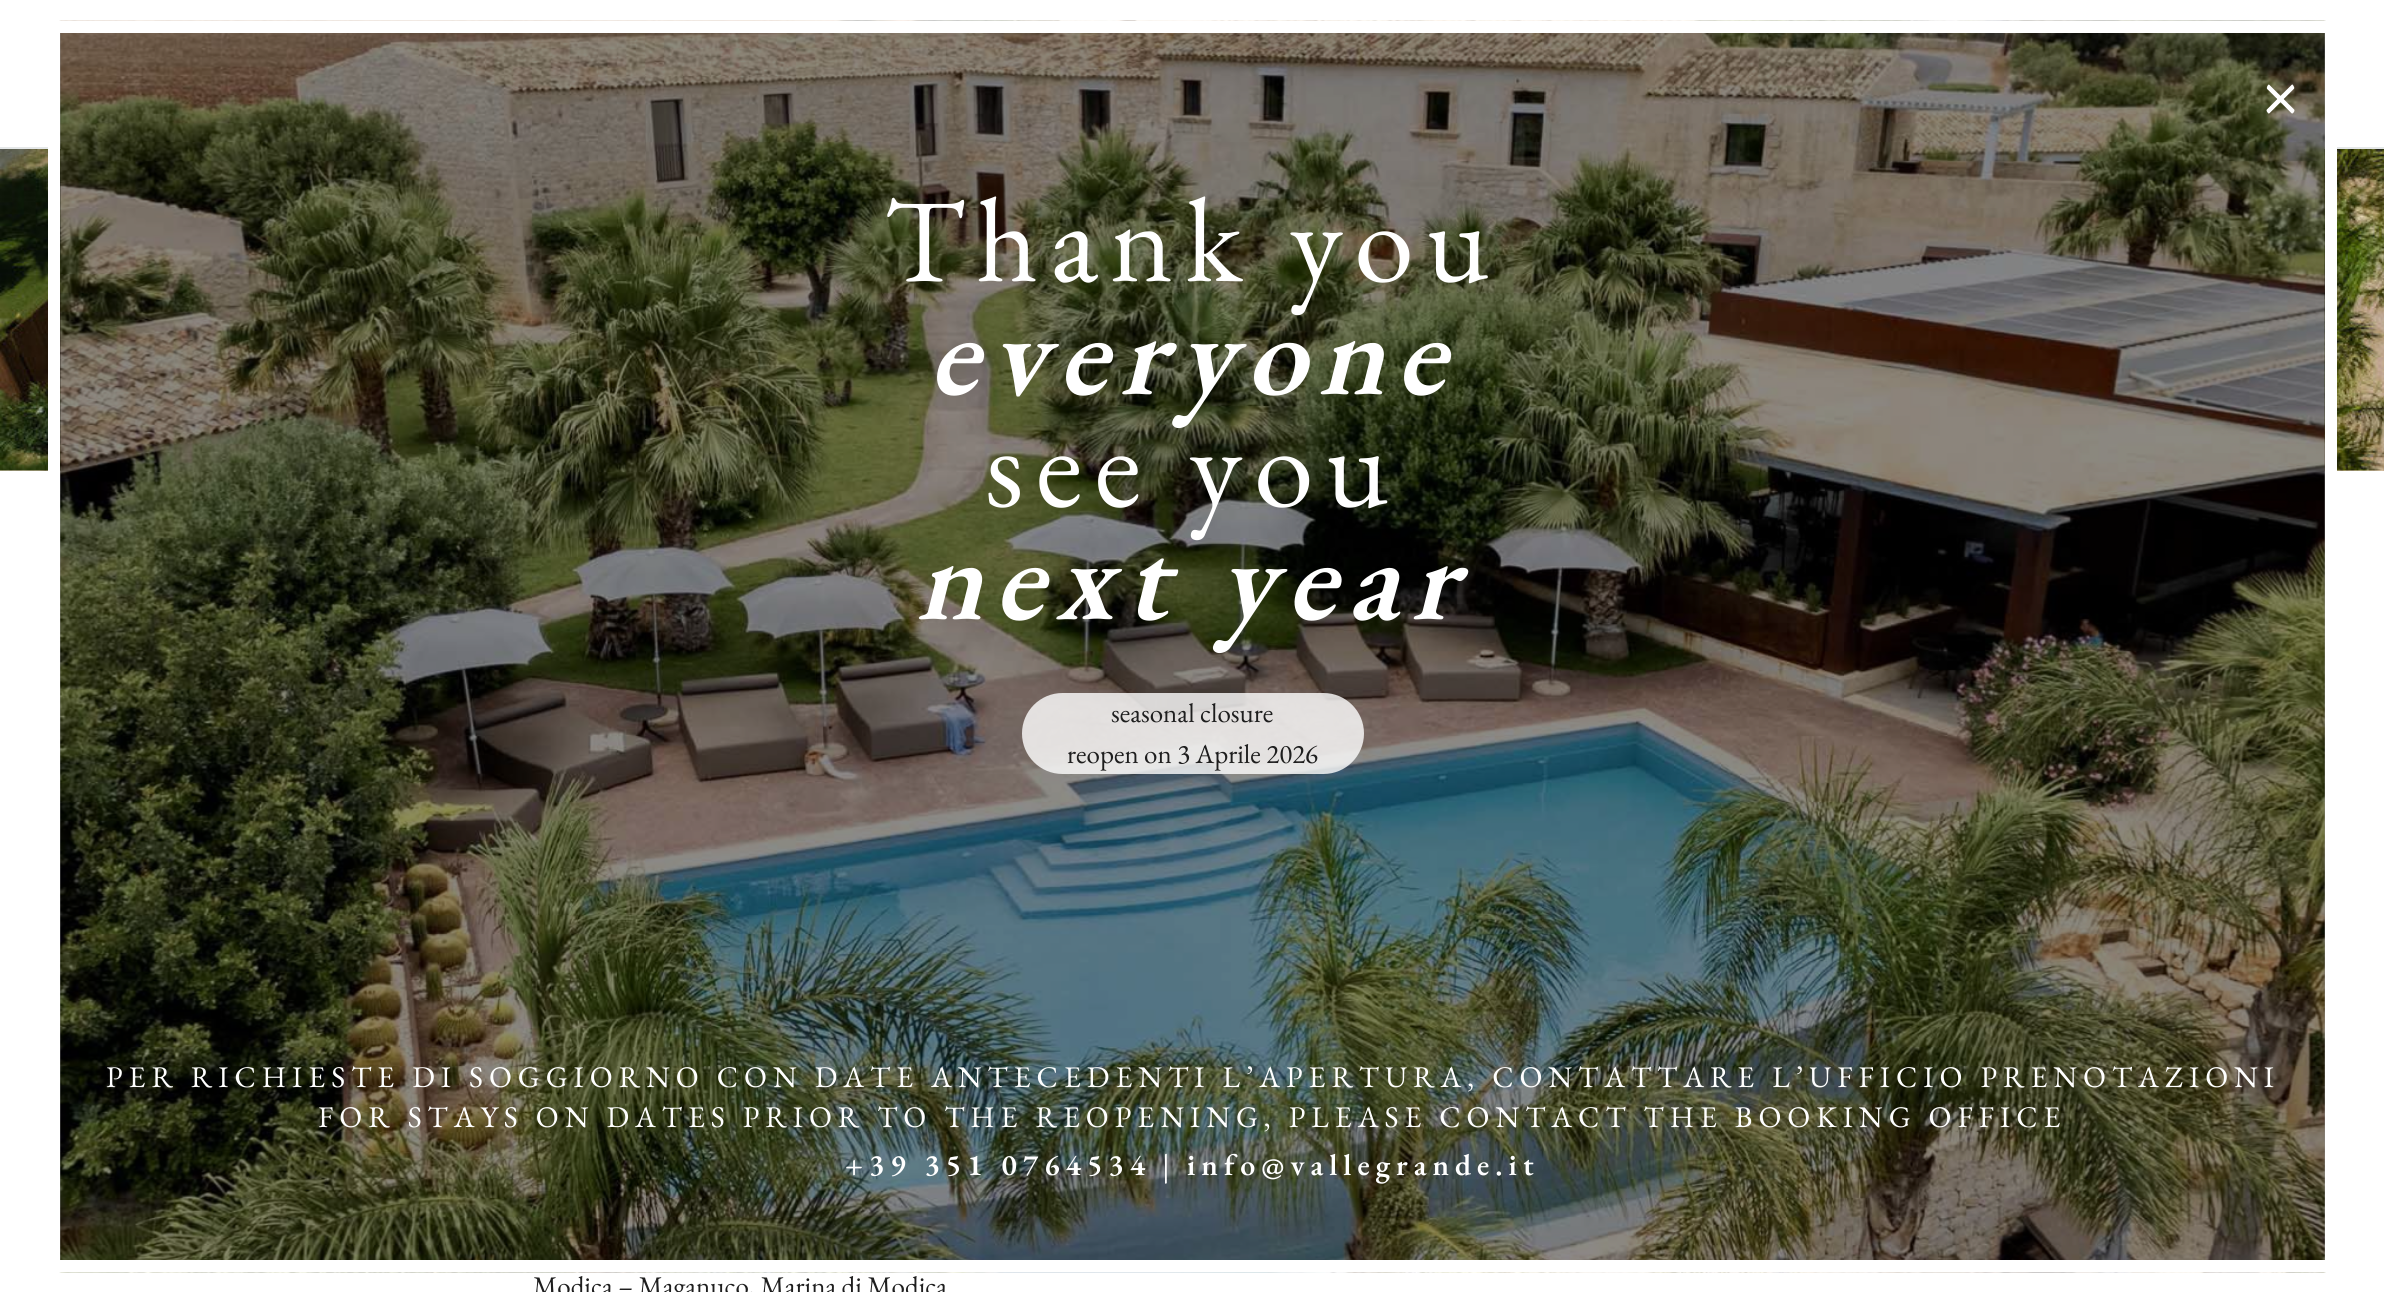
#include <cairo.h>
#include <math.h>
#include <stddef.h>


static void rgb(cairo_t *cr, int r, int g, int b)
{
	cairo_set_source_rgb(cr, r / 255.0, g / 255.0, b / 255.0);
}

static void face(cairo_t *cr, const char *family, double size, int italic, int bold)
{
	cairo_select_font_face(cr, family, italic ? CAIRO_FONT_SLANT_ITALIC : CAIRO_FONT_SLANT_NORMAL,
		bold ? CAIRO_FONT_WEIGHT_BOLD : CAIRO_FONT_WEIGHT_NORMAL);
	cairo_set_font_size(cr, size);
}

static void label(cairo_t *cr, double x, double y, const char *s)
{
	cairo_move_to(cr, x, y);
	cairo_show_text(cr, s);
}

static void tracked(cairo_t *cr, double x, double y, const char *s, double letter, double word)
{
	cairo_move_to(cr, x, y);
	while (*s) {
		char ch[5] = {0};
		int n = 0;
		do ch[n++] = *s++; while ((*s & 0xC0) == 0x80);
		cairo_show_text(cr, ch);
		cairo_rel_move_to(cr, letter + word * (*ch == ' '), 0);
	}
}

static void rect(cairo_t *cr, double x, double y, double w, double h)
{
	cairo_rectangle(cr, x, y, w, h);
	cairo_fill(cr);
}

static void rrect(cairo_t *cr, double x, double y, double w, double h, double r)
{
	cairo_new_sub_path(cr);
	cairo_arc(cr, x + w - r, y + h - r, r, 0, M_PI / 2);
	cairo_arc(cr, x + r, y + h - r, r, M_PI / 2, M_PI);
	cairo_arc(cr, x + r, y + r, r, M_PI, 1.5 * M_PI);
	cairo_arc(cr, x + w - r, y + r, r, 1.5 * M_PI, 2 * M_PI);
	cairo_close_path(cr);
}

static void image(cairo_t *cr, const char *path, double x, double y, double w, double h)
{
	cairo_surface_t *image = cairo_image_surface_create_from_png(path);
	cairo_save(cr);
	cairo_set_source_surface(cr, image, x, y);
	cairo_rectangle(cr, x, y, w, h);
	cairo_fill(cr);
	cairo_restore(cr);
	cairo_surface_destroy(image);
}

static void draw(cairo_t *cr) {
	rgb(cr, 255, 255, 255);
	cairo_paint(cr);
	rgb(cr, 228, 231, 232);
	rect(cr, 0, 147, 2384, 2);
	image(cr, "image2.png", 0, 470, 2384, 1);
	image(cr, "image1.png", 0, 149, 2384, 322);
	image(cr, "image0.png", 59, 20, 2267, 1253);
	cairo_rectangle(cr, 54, 27, 2277, 1239);
	rgb(cr, 255, 255, 255);
	cairo_set_line_width(cr, 12);
	cairo_stroke(cr);
	cairo_set_source_rgba(cr, 0, 0, 0, 0.45);
	rect(cr, 60, 33, 2265, 1227);
	face(cr, "EB Garamond", 75, 0, 0);
	rgb(cr, 255, 255, 255);
	label(cr, 2258, 118, "×");
	face(cr, "EB Garamond", 120, 0, 0);
	tracked(cr, 884, 281, "Thank you", 12, 0);
	face(cr, "EB Garamond SemiBold", 120, 1, 0);
	tracked(cr, 929, 394, "everyone", 12, 0);
	face(cr, "EB Garamond", 120, 0, 0);
	tracked(cr, 985, 506, "see you", 12, 0);
	face(cr, "EB Garamond SemiBold", 120, 1, 0);
	tracked(cr, 916, 619, "next year", 12, 0);
	cairo_set_source_rgba(cr, 1, 1, 1, 0.8);
	rrect(cr, 1022, 693, 342, 81, 40.5);
	cairo_fill(cr);
	face(cr, "EB Garamond", 27, 0, 0);
	rgb(cr, 30, 30, 30);
	label(cr, 1111, 722, "seasonal closure");
	label(cr, 1067, 763, "reopen on 3 Aprile 2026");
	face(cr, "EB Garamond", 30, 0, 0);
	rgb(cr, 255, 255, 255);
	tracked(cr, 106, 1087, "PER RICHIESTE DI SOGGIORNO CON DATE ANTECEDENTI L’APERTURA, CONTATTARE L’UFFICIO PRENOTAZIONI", 6, 0);
	tracked(cr, 318, 1127, "FOR STAYS ON DATES PRIOR TO THE REOPENING, PLEASE CONTACT THE BOOKING OFFICE", 6, 0);
	face(cr, "EB Garamond SemiBold", 30, 0, 0);
	tracked(cr, 845, 1175, "+39 351 0764534", 6, 0);
	face(cr, "EB Garamond", 30, 0, 0);
	tracked(cr, 1162, 1175, "|", 6, 0);
	face(cr, "EB Garamond SemiBold", 30, 0, 0);
	tracked(cr, 1187, 1175, "info@vallegrande.it", 6, 0);
	face(cr, "EB Garamond", 27, 0, 0);
	rgb(cr, 30, 30, 30);
	label(cr, 533, 1295, "Modica – Maganuco, Marina di Modica");
}

int main(void) {
	cairo_surface_t *surface = cairo_image_surface_create(CAIRO_FORMAT_RGB24, 2384, 1292);
	cairo_t *cr = cairo_create(surface);
	cairo_font_options_t *options = cairo_font_options_create();
	cairo_font_options_set_hint_metrics(options, CAIRO_HINT_METRICS_OFF);
	cairo_font_options_set_hint_style(options, CAIRO_HINT_STYLE_NONE);
	cairo_set_font_options(cr, options);
	cairo_set_miter_limit(cr, 4);
	draw(cr);
	cairo_surface_write_to_png(surface, "render.png");
	cairo_font_options_destroy(options);
	cairo_destroy(cr);
	cairo_surface_destroy(surface);
	return 0;
}
